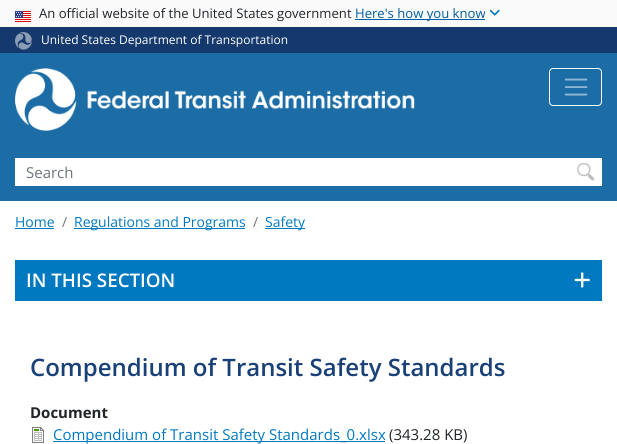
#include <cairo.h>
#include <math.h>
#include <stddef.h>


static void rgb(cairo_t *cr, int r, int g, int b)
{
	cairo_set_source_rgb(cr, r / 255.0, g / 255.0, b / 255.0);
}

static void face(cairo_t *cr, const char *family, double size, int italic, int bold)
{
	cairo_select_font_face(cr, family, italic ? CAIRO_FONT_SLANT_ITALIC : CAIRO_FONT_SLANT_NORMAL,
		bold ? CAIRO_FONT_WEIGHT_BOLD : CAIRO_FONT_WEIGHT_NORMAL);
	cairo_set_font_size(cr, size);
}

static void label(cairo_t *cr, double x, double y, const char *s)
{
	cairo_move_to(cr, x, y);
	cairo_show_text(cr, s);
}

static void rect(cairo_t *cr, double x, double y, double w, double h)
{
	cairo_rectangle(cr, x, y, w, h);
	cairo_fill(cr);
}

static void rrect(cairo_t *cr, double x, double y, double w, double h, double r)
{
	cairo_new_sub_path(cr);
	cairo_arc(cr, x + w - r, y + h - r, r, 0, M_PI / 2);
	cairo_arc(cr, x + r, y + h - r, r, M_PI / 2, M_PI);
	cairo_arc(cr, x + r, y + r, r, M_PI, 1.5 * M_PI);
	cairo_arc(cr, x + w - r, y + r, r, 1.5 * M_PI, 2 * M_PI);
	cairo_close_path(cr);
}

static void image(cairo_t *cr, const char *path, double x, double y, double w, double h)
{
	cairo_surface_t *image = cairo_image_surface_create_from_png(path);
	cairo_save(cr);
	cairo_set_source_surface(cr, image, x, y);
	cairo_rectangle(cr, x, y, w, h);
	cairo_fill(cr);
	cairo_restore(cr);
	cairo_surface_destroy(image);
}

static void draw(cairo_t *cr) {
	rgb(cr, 255, 255, 255);
	cairo_paint(cr);
	rgb(cr, 250, 250, 250);
	rect(cr, 0, 0, 617, 27);
	image(cr, "image0.png", 15, 11, 16, 11);
	face(cr, "Open Sans", 13.1, 0, 0);
	rgb(cr, 33, 37, 41);
	label(cr, 39, 18, "An official website of the United States government");
	rgb(cr, 0, 94, 162);
	rect(cr, 355, 19, 130, 1);
	label(cr, 355, 18, "Here's how you know");
	image(cr, "image1.png", 489, 9, 11, 7);
	rgb(cr, 21, 57, 108);
	rect(cr, 0, 27, 617, 26);
	image(cr, "image2.png", 15, 32, 17, 18);
	face(cr, "Open Sans", 12, 0, 0);
	rgb(cr, 255, 255, 255);
	label(cr, 41, 44, "United States Department of Transportation");
	rgb(cr, 28, 109, 166);
	rect(cr, 0, 53, 617, 148);
	image(cr, "image3.png", 15, 68, 400, 63);
	rrect(cr, 549.5, 68.5, 52, 37, 3.5);
	rgb(cr, 255, 255, 255);
	cairo_set_line_width(cr, 1);
	cairo_stroke(cr);
	image(cr, "image4.png", 564, 78, 24, 18);
	rect(cr, 15, 158, 587, 28);
	face(cr, "Open Sans", 15, 0, 0);
	rgb(cr, 108, 117, 125);
	label(cr, 26, 178, "Search");
	image(cr, "image5.png", 577, 163, 18, 18);
	face(cr, "Open Sans", 14, 0, 0);
	rgb(cr, 0, 121, 192);
	label(cr, 15, 227, "Home");
	rect(cr, 15, 228, 39, 1);
	rgb(cr, 108, 117, 125);
	label(cr, 62, 227, "/");
	rgb(cr, 0, 121, 192);
	rect(cr, 74, 228, 171, 1);
	label(cr, 74, 227, "Regulations and Programs");
	rgb(cr, 108, 117, 125);
	label(cr, 253, 227, "/");
	rgb(cr, 0, 121, 192);
	rect(cr, 265, 228, 40, 1);
	label(cr, 265, 227, "Safety");
	rect(cr, 15, 260, 587, 41);
	face(cr, "Open Sans SemiBold", 18.75, 0, 0);
	rgb(cr, 255, 255, 255);
	label(cr, 26, 287, "IN THIS SECTION");
	image(cr, "image6.png", 574, 272, 16, 16);
	face(cr, "Open Sans SemiBold", 24, 0, 0);
	rgb(cr, 25, 65, 120);
	label(cr, 30, 376, "Compendium of Transit Safety Standards");
	face(cr, "Open Sans", 15, 0, 1);
	rgb(cr, 33, 37, 41);
	label(cr, 30, 418, "Document");
	image(cr, "image7.png", 32, 427, 12, 16);
	rgb(cr, 0, 121, 192);
	rect(cr, 53, 441, 332, 1);
	face(cr, "Open Sans", 15, 0, 0);
	label(cr, 53, 440, "Compendium of Transit Safety Standards_0.xlsx");
	rgb(cr, 33, 37, 41);
	label(cr, 389, 440, "(343.28 KB)");
}

int main(void) {
	cairo_surface_t *surface = cairo_image_surface_create(CAIRO_FORMAT_RGB24, 617, 444);
	cairo_t *cr = cairo_create(surface);
	cairo_font_options_t *options = cairo_font_options_create();
	cairo_font_options_set_hint_metrics(options, CAIRO_HINT_METRICS_OFF);
	cairo_font_options_set_hint_style(options, CAIRO_HINT_STYLE_NONE);
	cairo_set_font_options(cr, options);
	cairo_set_miter_limit(cr, 4);
	draw(cr);
	cairo_surface_write_to_png(surface, "render.png");
	cairo_font_options_destroy(options);
	cairo_destroy(cr);
	cairo_surface_destroy(surface);
	return 0;
}
